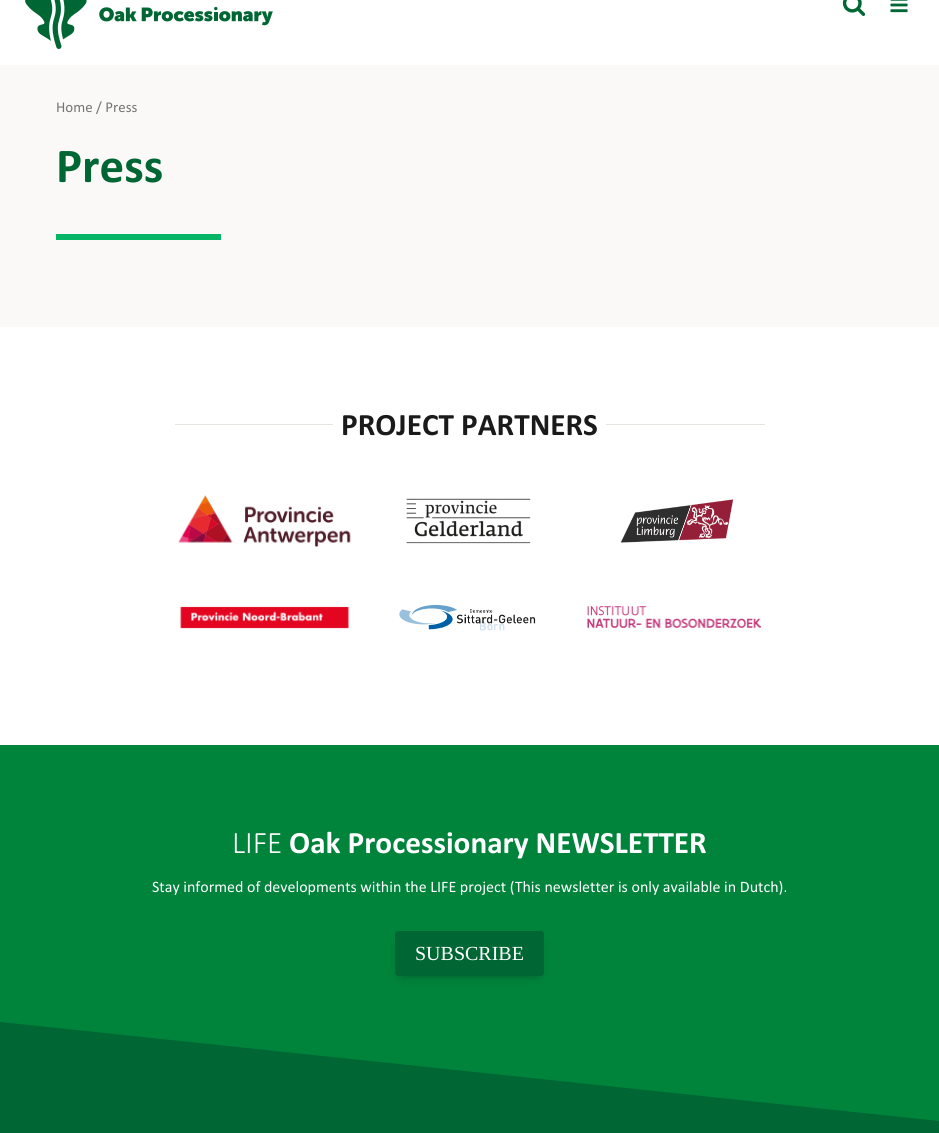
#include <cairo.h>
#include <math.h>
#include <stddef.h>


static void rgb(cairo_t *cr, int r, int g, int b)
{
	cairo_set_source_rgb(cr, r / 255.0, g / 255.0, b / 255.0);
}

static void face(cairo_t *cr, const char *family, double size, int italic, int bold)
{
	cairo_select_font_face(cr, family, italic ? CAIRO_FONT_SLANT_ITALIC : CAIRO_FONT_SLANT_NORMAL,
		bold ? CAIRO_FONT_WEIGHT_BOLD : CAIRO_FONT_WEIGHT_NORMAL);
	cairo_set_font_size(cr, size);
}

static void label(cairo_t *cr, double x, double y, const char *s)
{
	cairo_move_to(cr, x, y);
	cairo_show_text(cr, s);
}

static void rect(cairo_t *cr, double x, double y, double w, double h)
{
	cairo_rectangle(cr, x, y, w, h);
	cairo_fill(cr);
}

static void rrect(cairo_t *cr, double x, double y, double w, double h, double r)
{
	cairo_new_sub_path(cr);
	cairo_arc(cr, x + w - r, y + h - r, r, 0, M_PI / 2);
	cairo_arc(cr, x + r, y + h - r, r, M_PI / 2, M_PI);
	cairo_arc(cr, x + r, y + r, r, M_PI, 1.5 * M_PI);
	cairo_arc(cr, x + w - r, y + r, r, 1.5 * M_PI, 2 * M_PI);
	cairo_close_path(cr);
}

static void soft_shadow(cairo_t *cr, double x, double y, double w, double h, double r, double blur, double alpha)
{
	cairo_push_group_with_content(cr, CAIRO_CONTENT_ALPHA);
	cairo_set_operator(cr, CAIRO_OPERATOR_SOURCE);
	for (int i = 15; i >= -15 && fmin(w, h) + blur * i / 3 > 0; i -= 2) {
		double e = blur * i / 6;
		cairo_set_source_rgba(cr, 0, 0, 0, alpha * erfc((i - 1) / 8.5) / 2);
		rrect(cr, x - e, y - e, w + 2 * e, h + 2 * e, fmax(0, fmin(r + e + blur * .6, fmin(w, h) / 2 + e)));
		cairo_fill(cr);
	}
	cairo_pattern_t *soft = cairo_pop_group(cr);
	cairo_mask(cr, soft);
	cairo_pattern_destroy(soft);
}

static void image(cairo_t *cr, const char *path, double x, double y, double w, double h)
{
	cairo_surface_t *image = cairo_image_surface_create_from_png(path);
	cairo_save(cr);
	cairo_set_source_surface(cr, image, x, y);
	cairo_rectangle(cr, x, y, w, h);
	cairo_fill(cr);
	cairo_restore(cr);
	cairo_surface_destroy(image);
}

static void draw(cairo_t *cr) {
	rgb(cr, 250, 249, 247);
	cairo_paint(cr);
	rgb(cr, 255, 255, 255);
	rect(cr, 0, 0, 939, 65);
	image(cr, "image0.png", 25, 0, 248, 49);
	image(cr, "image1.png", 842, 0, 24, 16);
	image(cr, "image2.png", 890, 0, 18, 13);
	face(cr, "Calibri", 15, 0, 0);
	rgb(cr, 116, 116, 116);
	label(cr, 56, 112, "Home / Press");
	face(cr, "Calibri", 49, 0, 1);
	rgb(cr, 0, 102, 51);
	label(cr, 56, 182, "Press");
	rgb(cr, 5, 180, 100);
	rect(cr, 56, 234, 165, 6);
	rgb(cr, 255, 255, 255);
	rect(cr, 0, 327, 939, 418);
	rgb(cr, 232, 229, 224);
	rect(cr, 175, 424, 590, 1);
	rgb(cr, 255, 255, 255);
	rect(cr, 333, 424, 273, 1);
	face(cr, "Calibri", 31.25, 0, 1);
	rgb(cr, 26, 26, 26);
	label(cr, 341, 435, "PROJECT PARTNERS");
	image(cr, "image3.png", 178, 495, 173, 53);
	image(cr, "image4.png", 406, 498, 125, 46);
	image(cr, "image5.png", 620, 499, 114, 44);
	image(cr, "image6.png", 180, 606, 169, 23);
	image(cr, "image7.png", 399, 604, 137, 27);
	image(cr, "image8.png", 587, 606, 175, 22);
	rgb(cr, 0, 131, 59);
	rect(cr, 0, 745, 939, 376);
	face(cr, "Calibri Light", 31.25, 0, 0);
	rgb(cr, 255, 255, 255);
	label(cr, 232, 853, "LIFE");
	face(cr, "Calibri", 31.25, 0, 1);
	label(cr, 289, 853, "Oak Processionary NEWSLETTER");
	face(cr, "Calibri", 16, 0, 0);
	label(cr, 152, 892, "Stay informed of developments within the LIFE project (This newsletter is only available in Dutch).");
	rgb(cr, 17, 17, 17);
	soft_shadow(cr, 402, 943, 135, 31, 0, 5, 0.5);
	rgb(cr, 0, 102, 51);
	rrect(cr, 395, 931, 149, 45, 3);
	cairo_fill(cr);
	face(cr, "Liberation Serif", 20, 0, 0);
	rgb(cr, 255, 255, 255);
	label(cr, 415, 960, "SUBSCRIBE");
	rgb(cr, 0, 102, 51);
	cairo_new_path(cr);
	cairo_move_to(cr, 0, 1022);
	cairo_line_to(cr, 0, 1122);
	cairo_line_to(cr, 939, 1122);
	cairo_line_to(cr, 939, 1121);
	cairo_close_path(cr);
	cairo_fill(cr);
	rect(cr, 0, 1122, 939, 11);
}

int main(void) {
	cairo_surface_t *surface = cairo_image_surface_create(CAIRO_FORMAT_RGB24, 939, 1133);
	cairo_t *cr = cairo_create(surface);
	cairo_font_options_t *options = cairo_font_options_create();
	cairo_font_options_set_hint_metrics(options, CAIRO_HINT_METRICS_OFF);
	cairo_font_options_set_hint_style(options, CAIRO_HINT_STYLE_NONE);
	cairo_set_font_options(cr, options);
	cairo_set_miter_limit(cr, 4);
	draw(cr);
	cairo_surface_write_to_png(surface, "render.png");
	cairo_font_options_destroy(options);
	cairo_destroy(cr);
	cairo_surface_destroy(surface);
	return 0;
}
